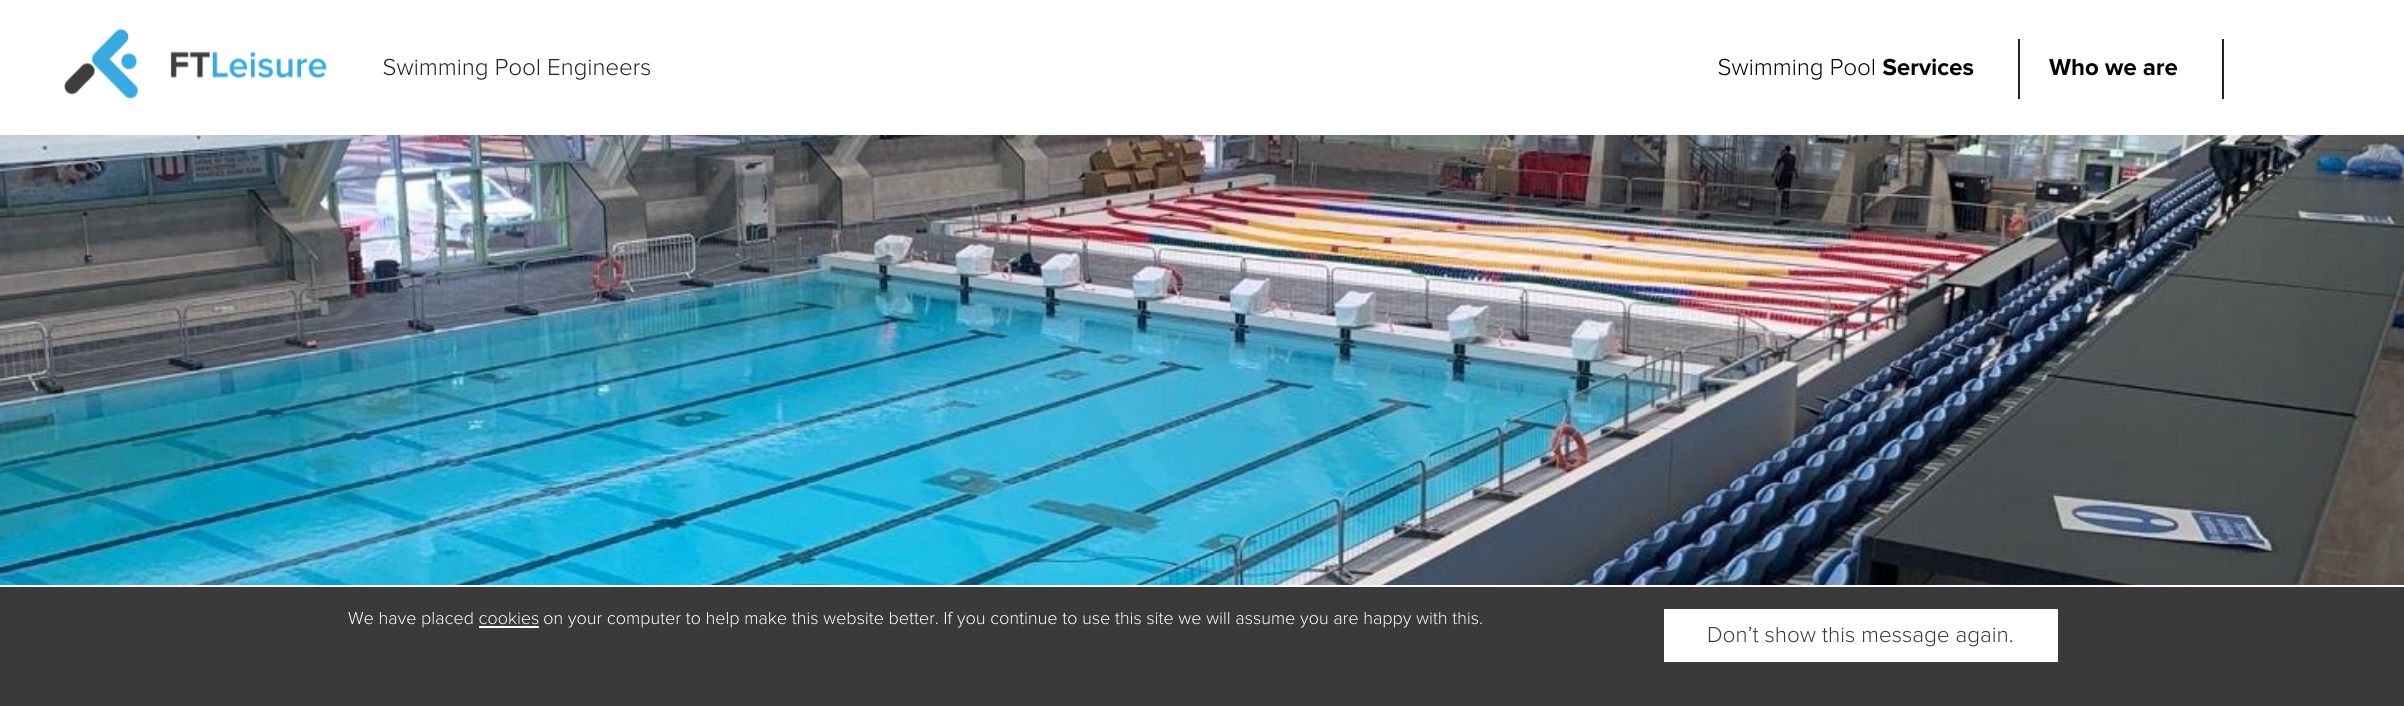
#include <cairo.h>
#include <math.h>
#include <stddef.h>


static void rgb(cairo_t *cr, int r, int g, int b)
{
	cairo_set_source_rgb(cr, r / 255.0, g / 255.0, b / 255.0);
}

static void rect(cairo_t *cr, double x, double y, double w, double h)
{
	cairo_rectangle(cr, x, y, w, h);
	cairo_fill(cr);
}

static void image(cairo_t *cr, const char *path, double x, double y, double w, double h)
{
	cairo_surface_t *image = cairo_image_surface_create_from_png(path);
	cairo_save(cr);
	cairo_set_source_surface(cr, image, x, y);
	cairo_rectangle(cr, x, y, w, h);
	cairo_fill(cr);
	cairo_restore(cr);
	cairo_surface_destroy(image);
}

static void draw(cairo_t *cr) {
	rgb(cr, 255, 255, 255);
	cairo_paint(cr);
	image(cr, "image0.png", 64, 29, 263, 70);
	image(cr, "image1.png", 383, 58, 267, 22);
	image(cr, "image2.png", 1718, 58, 156, 22);
	image(cr, "image3.png", 1883, 58, 91, 18);
	rgb(cr, 34, 34, 34);
	rect(cr, 2018, 39, 2, 60);
	image(cr, "image4.png", 2049, 59, 129, 17);
	rect(cr, 2222, 39, 2, 60);
	image(cr, "image5.png", 0, 135, 2404, 450);
	rgb(cr, 58, 58, 60);
	rect(cr, 0, 587, 2404, 119);
	image(cr, "image6.png", 348, 612, 125, 16);
	image(cr, "image7.png", 479, 612, 60, 13);
	image(cr, "image8.png", 544, 611, 938, 17);
	rgb(cr, 255, 255, 255);
	rect(cr, 479, 626, 60, 2);
	rect(cr, 1664, 609, 394, 53);
	image(cr, "image9.png", 1708, 626, 305, 21);
}

int main(void) {
	cairo_surface_t *surface = cairo_image_surface_create(CAIRO_FORMAT_RGB24, 2404, 706);
	cairo_t *cr = cairo_create(surface);
	cairo_font_options_t *options = cairo_font_options_create();
	cairo_font_options_set_hint_metrics(options, CAIRO_HINT_METRICS_OFF);
	cairo_font_options_set_hint_style(options, CAIRO_HINT_STYLE_NONE);
	cairo_set_font_options(cr, options);
	cairo_set_miter_limit(cr, 4);
	draw(cr);
	cairo_surface_write_to_png(surface, "render.png");
	cairo_font_options_destroy(options);
	cairo_destroy(cr);
	cairo_surface_destroy(surface);
	return 0;
}
